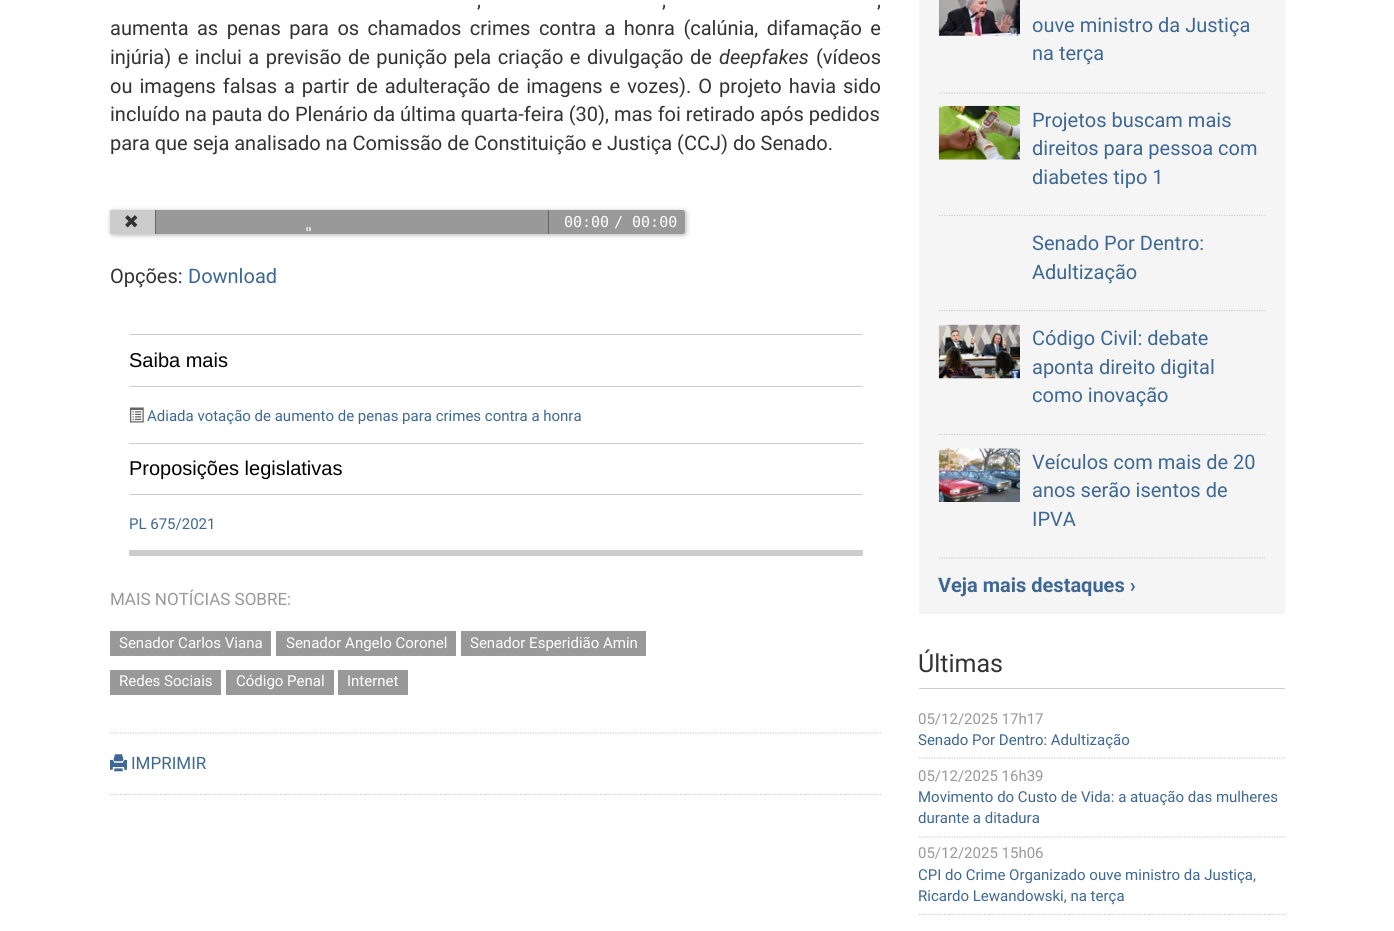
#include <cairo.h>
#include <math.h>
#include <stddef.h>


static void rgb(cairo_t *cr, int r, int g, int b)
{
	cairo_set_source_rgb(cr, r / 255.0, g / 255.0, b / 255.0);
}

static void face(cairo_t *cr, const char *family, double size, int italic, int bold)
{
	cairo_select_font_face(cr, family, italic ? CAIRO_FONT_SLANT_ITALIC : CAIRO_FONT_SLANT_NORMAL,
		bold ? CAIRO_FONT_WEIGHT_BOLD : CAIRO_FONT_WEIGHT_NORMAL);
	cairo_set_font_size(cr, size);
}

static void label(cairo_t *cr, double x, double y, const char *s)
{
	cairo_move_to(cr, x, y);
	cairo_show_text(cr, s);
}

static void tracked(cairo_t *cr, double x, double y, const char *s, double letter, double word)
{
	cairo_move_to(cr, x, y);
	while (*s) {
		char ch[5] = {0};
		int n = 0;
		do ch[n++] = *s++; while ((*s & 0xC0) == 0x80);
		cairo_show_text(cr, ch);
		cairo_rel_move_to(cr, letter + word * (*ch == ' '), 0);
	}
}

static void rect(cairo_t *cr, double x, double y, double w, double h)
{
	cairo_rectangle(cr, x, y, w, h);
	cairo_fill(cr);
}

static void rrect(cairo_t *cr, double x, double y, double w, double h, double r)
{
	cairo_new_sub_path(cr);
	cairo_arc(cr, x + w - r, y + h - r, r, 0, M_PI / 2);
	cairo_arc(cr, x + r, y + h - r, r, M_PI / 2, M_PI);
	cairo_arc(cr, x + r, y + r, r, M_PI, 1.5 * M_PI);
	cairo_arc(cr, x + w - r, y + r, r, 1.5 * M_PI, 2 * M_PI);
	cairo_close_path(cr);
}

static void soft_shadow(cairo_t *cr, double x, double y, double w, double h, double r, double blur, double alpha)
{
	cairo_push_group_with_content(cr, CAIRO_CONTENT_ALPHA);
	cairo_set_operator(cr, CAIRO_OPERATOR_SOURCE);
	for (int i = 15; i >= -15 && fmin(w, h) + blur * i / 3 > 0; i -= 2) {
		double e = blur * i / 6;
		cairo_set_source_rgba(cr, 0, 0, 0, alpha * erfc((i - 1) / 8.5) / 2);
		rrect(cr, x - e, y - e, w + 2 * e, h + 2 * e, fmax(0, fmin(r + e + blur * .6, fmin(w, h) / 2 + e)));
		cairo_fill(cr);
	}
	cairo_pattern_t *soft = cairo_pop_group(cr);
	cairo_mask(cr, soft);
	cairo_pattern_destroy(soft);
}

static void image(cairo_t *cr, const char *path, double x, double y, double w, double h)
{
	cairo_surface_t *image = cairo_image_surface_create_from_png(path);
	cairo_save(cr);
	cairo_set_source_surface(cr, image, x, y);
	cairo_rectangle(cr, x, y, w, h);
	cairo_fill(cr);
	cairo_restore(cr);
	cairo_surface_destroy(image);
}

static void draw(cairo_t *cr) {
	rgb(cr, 255, 255, 255);
	cairo_paint(cr);
	face(cr, "Roboto", 20, 0, 0);
	rgb(cr, 51, 51, 51);
	tracked(cr, 477, 7, ",", 0, 6);
	tracked(cr, 662, 7, ",", 0, 6);
	tracked(cr, 877, 7, ",", 0, 6);
	tracked(cr, 110, 35, "aumenta as penas para os chamados crimes contra a honra (calúnia, difamação e", 0, 3.5);
	tracked(cr, 110, 64, "injúria) e inclui a previsão de punição pela criação e divulgação de", 0, 1.5);
	face(cr, "Roboto", 20, 1, 0);
	label(cr, 719, 64, "deepfakes");
	face(cr, "Roboto", 20, 0, 0);
	label(cr, 816, 64, "(vídeos");
	tracked(cr, 110, 93, "ou imagens falsas a partir de adulteração de imagens e vozes). O projeto havia sido", 0, 2);
	label(cr, 110, 121, "incluído na pauta do Plenário da última quarta-feira (30), mas foi retirado após pedidos");
	label(cr, 110, 150, "para que seja analisado na Comissão de Constituição e Justiça (CCJ) do Senado.");
	rgb(cr, 0, 0, 0);
	soft_shadow(cr, 111, 211, 575, 24, 2.5, 2.5, 0.3);
	rgb(cr, 153, 153, 153);
	rrect(cr, 110, 210, 575, 24, 2.5);
	cairo_fill(cr);
	rgb(cr, 204, 204, 204);
	cairo_new_path(cr);
	cairo_move_to(cr, 112.5, 210);
	cairo_line_to(cr, 156, 210);
	cairo_line_to(cr, 156, 234);
	cairo_line_to(cr, 112.5, 234);
	cairo_curve_to(cr, 111, 234, 110, 233, 110, 231.5);
	cairo_line_to(cr, 110, 212.5);
	cairo_curve_to(cr, 110, 211, 111, 210, 112.5, 210);
	cairo_close_path(cr);
	cairo_fill(cr);
	rgb(cr, 102, 102, 102);
	rect(cr, 155, 210, 1, 24);
	image(cr, "image0.png", 125, 215, 13, 13);
	rect(cr, 548, 210, 1, 24);
	face(cr, "DejaVu Sans Mono", 15, 0, 0);
	rgb(cr, 255, 255, 255);
	label(cr, 564, 227, "00:00");
	label(cr, 614, 227, "/ 00:00");
	label(cr, 304, 238, "\"");
	face(cr, "Roboto", 20, 0, 0);
	rgb(cr, 51, 51, 51);
	label(cr, 110, 283, "Opções:");
	rgb(cr, 62, 104, 146);
	label(cr, 188, 283, "Download");
	rgb(cr, 204, 204, 204);
	rect(cr, 129, 550, 734, 6);
	rect(cr, 129, 334, 734, 1);
	rect(cr, 129, 386, 734, 1);
	face(cr, "Liberation Sans", 20, 0, 0);
	rgb(cr, 0, 0, 0);
	label(cr, 129, 367, "Saiba mais");
	image(cr, "image1.png", 130, 407, 14, 16);
	face(cr, "Roboto", 15, 0, 0);
	rgb(cr, 62, 104, 146);
	label(cr, 147, 421, "Adiada votação de aumento de penas para crimes contra a honra");
	rgb(cr, 204, 204, 204);
	rect(cr, 129, 443, 734, 1);
	rect(cr, 129, 494, 734, 1);
	face(cr, "Liberation Sans", 20, 0, 0);
	rgb(cr, 0, 0, 0);
	label(cr, 129, 475, "Proposições legislativas");
	face(cr, "Roboto", 15, 0, 0);
	rgb(cr, 62, 104, 146);
	label(cr, 129, 529, "PL 675/2021");
	face(cr, "Roboto", 17, 0, 0);
	rgb(cr, 153, 153, 153);
	label(cr, 110, 605, "MAIS NOTÍCIAS SOBRE:");
	rect(cr, 110, 631, 161, 25);
	face(cr, "Roboto", 15, 0, 0);
	rgb(cr, 255, 255, 255);
	label(cr, 119, 648, "Senador Carlos Viana");
	rgb(cr, 153, 153, 153);
	rect(cr, 276, 631, 180, 25);
	rgb(cr, 255, 255, 255);
	label(cr, 286, 648, "Senador Angelo Coronel");
	rgb(cr, 153, 153, 153);
	rect(cr, 461, 631, 185, 25);
	rgb(cr, 255, 255, 255);
	label(cr, 470, 648, "Senador Esperidião Amin");
	rgb(cr, 153, 153, 153);
	rect(cr, 110, 670, 111, 25);
	rgb(cr, 255, 255, 255);
	label(cr, 119, 686, "Redes Sociais");
	rgb(cr, 153, 153, 153);
	rect(cr, 226, 670, 108, 25);
	rgb(cr, 255, 255, 255);
	label(cr, 236, 686, "Código Penal");
	rgb(cr, 153, 153, 153);
	rect(cr, 338, 670, 70, 25);
	rgb(cr, 255, 255, 255);
	label(cr, 347, 686, "Internet");
	cairo_new_path(cr);
	cairo_move_to(cr, 110, 733);
	cairo_line_to(cr, 881, 733);
	rgb(cr, 204, 204, 204);
	cairo_set_line_width(cr, 1.2);
	cairo_set_dash(cr, (double[]){1.25, 1.25}, 2, 0);
	cairo_stroke(cr);
	cairo_new_path(cr);
	cairo_move_to(cr, 110, 794.5);
	cairo_line_to(cr, 881, 794.5);
	cairo_stroke(cr);
	image(cr, "image2.png", 110, 754, 17, 18);
	face(cr, "Roboto", 17, 0, 0);
	rgb(cr, 62, 104, 146);
	label(cr, 131, 769, "IMPRIMIR");
	rgb(cr, 245, 245, 245);
	rect(cr, 919, 0, 366, 614);
	cairo_new_path(cr);
	cairo_move_to(cr, 939, 93);
	cairo_line_to(cr, 1265, 93);
	rgb(cr, 204, 204, 204);
	cairo_stroke(cr);
	image(cr, "image3.png", 938, 0, 82, 36);
	face(cr, "Roboto", 20, 0, 0);
	rgb(cr, 62, 104, 146);
	label(cr, 1032, 32, "ouve ministro da Justiça");
	label(cr, 1032, 60, "na terça");
	cairo_new_path(cr);
	cairo_move_to(cr, 939, 215.5);
	cairo_line_to(cr, 1265, 215.5);
	rgb(cr, 204, 204, 204);
	cairo_stroke(cr);
	image(cr, "image4.png", 938, 105, 82, 55);
	rgb(cr, 62, 104, 146);
	label(cr, 1032, 127, "Projetos buscam mais");
	label(cr, 1032, 155, "direitos para pessoa com");
	label(cr, 1032, 184, "diabetes tipo 1");
	cairo_new_path(cr);
	cairo_move_to(cr, 939, 310.5);
	cairo_line_to(cr, 1265, 310.5);
	rgb(cr, 204, 204, 204);
	cairo_stroke(cr);
	rgb(cr, 62, 104, 146);
	label(cr, 1032, 250, "Senado Por Dentro:");
	label(cr, 1032, 279, "Adultização");
	cairo_new_path(cr);
	cairo_move_to(cr, 939, 434.5);
	cairo_line_to(cr, 1265, 434.5);
	rgb(cr, 204, 204, 204);
	cairo_stroke(cr);
	image(cr, "image5.png", 938, 324, 82, 55);
	rgb(cr, 62, 104, 146);
	label(cr, 1032, 345, "Código Civil: debate");
	label(cr, 1032, 374, "aponta direito digital");
	label(cr, 1032, 402, "como inovação");
	cairo_new_path(cr);
	cairo_move_to(cr, 939, 558);
	cairo_line_to(cr, 1265, 558);
	rgb(cr, 204, 204, 204);
	cairo_stroke(cr);
	image(cr, "image6.png", 938, 448, 82, 54);
	rgb(cr, 62, 104, 146);
	label(cr, 1032, 469, "Veículos com mais de 20");
	label(cr, 1032, 497, "anos serão isentos de");
	label(cr, 1032, 526, "IPVA");
	face(cr, "Roboto", 20, 0, 1);
	label(cr, 938, 592, "Veja mais destaques ›");
	rgb(cr, 204, 204, 204);
	rect(cr, 919, 688, 366, 1);
	face(cr, "Roboto", 25, 0, 0);
	rgb(cr, 51, 51, 51);
	label(cr, 918, 672, "Últimas");
	cairo_new_path(cr);
	cairo_move_to(cr, 919, 758);
	cairo_line_to(cr, 1285, 758);
	rgb(cr, 204, 204, 204);
	cairo_stroke(cr);
	face(cr, "Roboto", 15, 0, 0);
	rgb(cr, 153, 153, 153);
	label(cr, 918, 724, "05/12/2025 17h17");
	rgb(cr, 62, 104, 146);
	label(cr, 918, 745, "Senado Por Dentro: Adultização");
	cairo_new_path(cr);
	cairo_move_to(cr, 919, 837);
	cairo_line_to(cr, 1285, 837);
	rgb(cr, 204, 204, 204);
	cairo_stroke(cr);
	rgb(cr, 153, 153, 153);
	label(cr, 918, 781, "05/12/2025 16h39");
	rgb(cr, 62, 104, 146);
	label(cr, 918, 802, "Movimento do Custo de Vida: a atuação das mulheres");
	label(cr, 918, 823, "durante a ditadura");
	cairo_new_path(cr);
	cairo_move_to(cr, 919, 914.5);
	cairo_line_to(cr, 1285, 914.5);
	rgb(cr, 204, 204, 204);
	cairo_stroke(cr);
	rgb(cr, 153, 153, 153);
	label(cr, 918, 858, "05/12/2025 15h06");
	rgb(cr, 62, 104, 146);
	label(cr, 918, 880, "CPI do Crime Organizado ouve ministro da Justiça,");
	label(cr, 918, 901, "Ricardo Lewandowski, na terça");
}

int main(void) {
	cairo_surface_t *surface = cairo_image_surface_create(CAIRO_FORMAT_RGB24, 1394, 931);
	cairo_t *cr = cairo_create(surface);
	cairo_font_options_t *options = cairo_font_options_create();
	cairo_font_options_set_hint_metrics(options, CAIRO_HINT_METRICS_OFF);
	cairo_font_options_set_hint_style(options, CAIRO_HINT_STYLE_NONE);
	cairo_set_font_options(cr, options);
	cairo_set_miter_limit(cr, 4);
	draw(cr);
	cairo_surface_write_to_png(surface, "render.png");
	cairo_font_options_destroy(options);
	cairo_destroy(cr);
	cairo_surface_destroy(surface);
	return 0;
}
